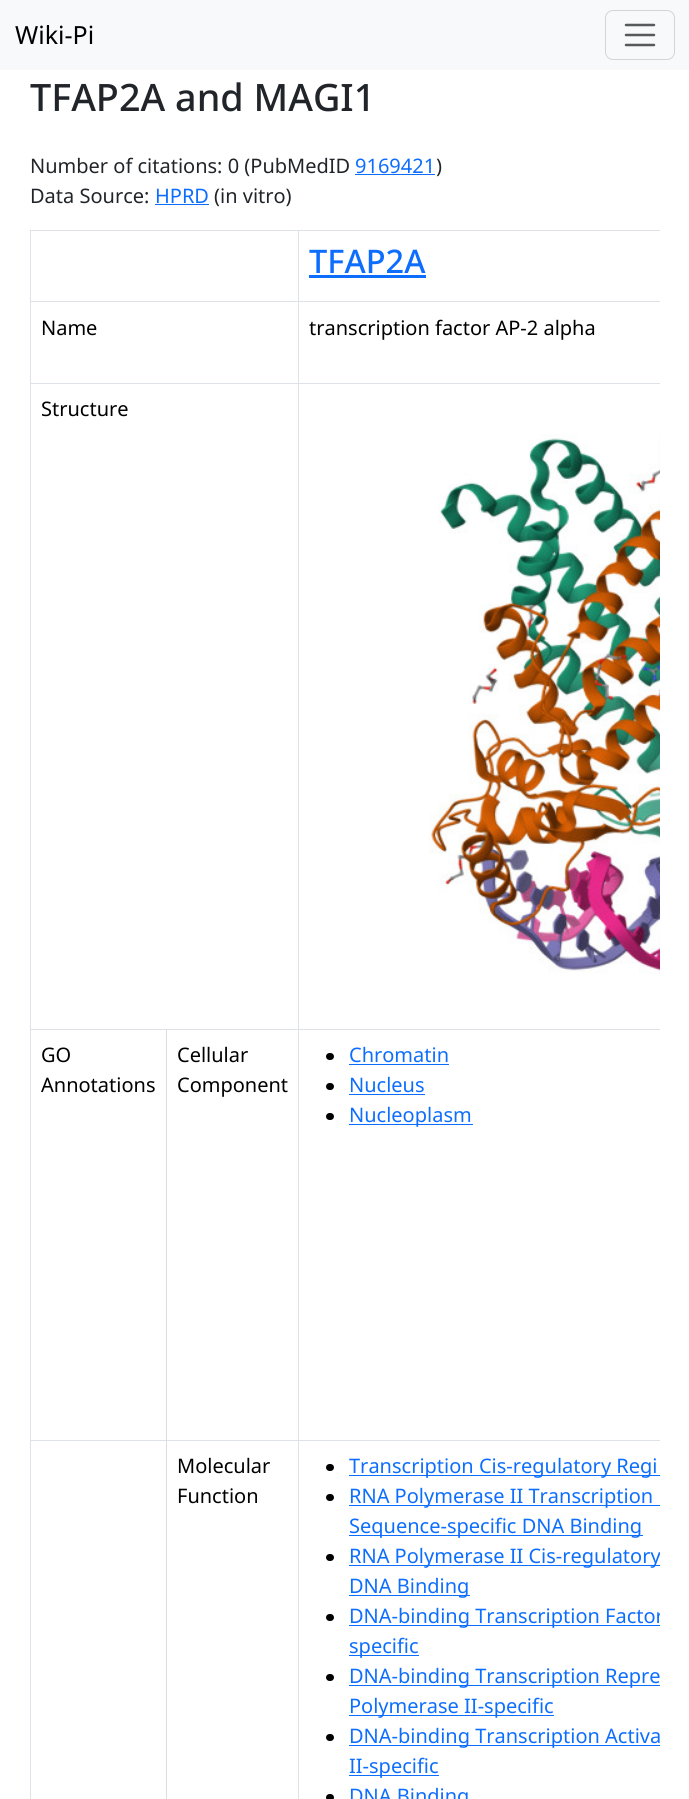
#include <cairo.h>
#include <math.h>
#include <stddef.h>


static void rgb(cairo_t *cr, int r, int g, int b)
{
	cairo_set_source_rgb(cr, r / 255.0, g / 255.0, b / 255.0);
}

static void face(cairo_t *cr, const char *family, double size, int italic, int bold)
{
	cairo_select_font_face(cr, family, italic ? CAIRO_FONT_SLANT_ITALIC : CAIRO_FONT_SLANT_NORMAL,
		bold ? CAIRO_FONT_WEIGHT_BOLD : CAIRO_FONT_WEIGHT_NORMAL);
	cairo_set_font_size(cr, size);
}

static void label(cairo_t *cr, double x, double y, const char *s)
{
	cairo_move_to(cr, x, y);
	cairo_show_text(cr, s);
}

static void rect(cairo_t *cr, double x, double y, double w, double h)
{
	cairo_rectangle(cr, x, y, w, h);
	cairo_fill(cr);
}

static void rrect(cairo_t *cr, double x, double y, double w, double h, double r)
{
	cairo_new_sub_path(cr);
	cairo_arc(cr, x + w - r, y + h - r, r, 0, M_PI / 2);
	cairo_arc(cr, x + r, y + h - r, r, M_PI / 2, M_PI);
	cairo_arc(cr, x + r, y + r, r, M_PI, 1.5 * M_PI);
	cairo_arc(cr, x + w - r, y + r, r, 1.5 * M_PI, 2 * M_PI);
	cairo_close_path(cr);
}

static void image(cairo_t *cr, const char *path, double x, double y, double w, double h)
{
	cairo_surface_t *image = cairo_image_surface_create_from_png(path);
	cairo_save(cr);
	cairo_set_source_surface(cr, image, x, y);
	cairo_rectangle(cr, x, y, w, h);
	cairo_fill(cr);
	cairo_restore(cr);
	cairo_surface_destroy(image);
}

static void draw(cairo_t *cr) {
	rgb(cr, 255, 255, 255);
	cairo_paint(cr);
	rgb(cr, 248, 249, 250);
	rect(cr, 0, 0, 689, 70);
	face(cr, "Noto Sans", 25, 0, 0);
	rgb(cr, 0, 0, 0);
	label(cr, 15, 44, "Wiki-Pi");
	rrect(cr, 605.5, 10.5, 69, 49, 7.5);
	rgb(cr, 211, 212, 213);
	cairo_set_line_width(cr, 1);
	cairo_stroke(cr);
	cairo_new_path(cr);
	cairo_move_to(cr, 626, 25);
	cairo_line_to(cr, 654, 25);
	cairo_move_to(cr, 626, 35);
	cairo_line_to(cr, 654, 35);
	cairo_move_to(cr, 626, 45);
	cairo_line_to(cr, 654, 45);
	rgb(cr, 87, 90, 93);
	cairo_set_line_width(cr, 2.5);
	cairo_set_line_cap(cr, CAIRO_LINE_CAP_ROUND);
	cairo_stroke(cr);
	face(cr, "Noto Sans Medium", 37.75, 0, 0);
	rgb(cr, 33, 37, 41);
	label(cr, 30, 111, "TFAP2A and MAGI1");
	face(cr, "Noto Sans", 20, 0, 0);
	label(cr, 30, 173, "Number of citations: 0 (PubMedID");
	rgb(cr, 13, 110, 253);
	label(cr, 355, 173, "9169421");
	rgb(cr, 33, 37, 41);
	label(cr, 436, 173, ")");
	rgb(cr, 13, 110, 253);
	rect(cr, 355, 174, 80, 1);
	rgb(cr, 33, 37, 41);
	label(cr, 30, 203, "Data Source:");
	rgb(cr, 13, 110, 253);
	label(cr, 155, 203, "HPRD");
	rect(cr, 155, 204, 54, 1);
	rgb(cr, 33, 37, 41);
	label(cr, 214, 203, "(in vitro)");
	rgb(cr, 222, 226, 230);
	rect(cr, 30, 230, 630, 1);
	face(cr, "Noto Sans Medium", 32.5, 0, 0);
	rgb(cr, 13, 110, 253);
	label(cr, 309, 273, "TFAP2A");
	rect(cr, 309, 275, 117, 3);
	rgb(cr, 222, 226, 230);
	rect(cr, 30, 301, 630, 1);
	face(cr, "Noto Sans", 20, 0, 0);
	rgb(cr, 0, 0, 0);
	label(cr, 41, 335, "Name");
	label(cr, 309, 335, "transcription factor AP-2 alpha");
	rgb(cr, 222, 226, 230);
	rect(cr, 30, 383, 630, 1);
	rgb(cr, 0, 0, 0);
	label(cr, 41, 416, "Structure");
	image(cr, "image0.png", 429, 434, 231, 540);
	rgb(cr, 222, 226, 230);
	rect(cr, 30, 1029, 630, 1);
	rect(cr, 30, 1440, 630, 1);
	rgb(cr, 221, 221, 221);
	rect(cr, 166, 1029, 1, 770);
	rgb(cr, 222, 226, 230);
	rect(cr, 30, 230, 1, 1569);
	rgb(cr, 0, 0, 0);
	label(cr, 41, 1062, "GO");
	label(cr, 41, 1092, "Annotations");
	label(cr, 177, 1062, "Cellular");
	label(cr, 177, 1092, "Component");
	rrect(cr, 326, 1053, 8, 7, 3.5);
	cairo_fill(cr);
	rgb(cr, 13, 110, 253);
	label(cr, 349, 1062, "Chromatin");
	rect(cr, 349, 1064, 100, 1);
	rgb(cr, 0, 0, 0);
	rrect(cr, 326, 1083, 8, 7, 3.5);
	cairo_fill(cr);
	rgb(cr, 13, 110, 253);
	label(cr, 349, 1092, "Nucleus");
	rect(cr, 349, 1094, 76, 1);
	rgb(cr, 0, 0, 0);
	rrect(cr, 326, 1113, 8, 7, 3.5);
	cairo_fill(cr);
	rgb(cr, 13, 110, 253);
	rect(cr, 349, 1124, 124, 1);
	label(cr, 349, 1122, "Nucleoplasm");
	rgb(cr, 0, 0, 0);
	label(cr, 177, 1473, "Molecular");
	label(cr, 177, 1503, "Function");
	rgb(cr, 222, 226, 230);
	rect(cr, 298, 230, 1, 1569);
	rgb(cr, 0, 0, 0);
	rrect(cr, 326, 1464, 8, 7, 3.5);
	cairo_fill(cr);
	rgb(cr, 13, 110, 253);
	rect(cr, 349, 1475, 311, 1);
	label(cr, 349, 1473, "Transcription Cis-regulatory Regi");
	rgb(cr, 0, 0, 0);
	rrect(cr, 326, 1494, 8, 7, 3.5);
	cairo_fill(cr);
	rgb(cr, 13, 110, 253);
	rect(cr, 349, 1505, 311, 1);
	label(cr, 349, 1503, "RNA Polymerase II Transcription");
	rect(cr, 349, 1535, 294, 1);
	label(cr, 349, 1533, "Sequence-specific DNA Binding");
	rgb(cr, 0, 0, 0);
	rrect(cr, 326, 1554, 8, 7, 3.5);
	cairo_fill(cr);
	rgb(cr, 13, 110, 253);
	rect(cr, 349, 1565, 311, 1);
	cairo_save(cr);
	cairo_rectangle(cr, 30, 230, 630, 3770);
	cairo_clip(cr);
	label(cr, 349, 1563, "RNA Polymerase II Cis-regulatory");
	cairo_restore(cr);
	rect(cr, 349, 1595, 121, 1);
	label(cr, 349, 1593, "DNA Binding");
	rgb(cr, 0, 0, 0);
	rrect(cr, 326, 1614, 8, 7, 3.5);
	cairo_fill(cr);
	rgb(cr, 13, 110, 253);
	rect(cr, 349, 1625, 311, 1);
	cairo_save(cr);
	cairo_rectangle(cr, 30, 230, 630, 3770);
	cairo_clip(cr);
	label(cr, 349, 1623, "DNA-binding Transcription Factor");
	cairo_restore(cr);
	rect(cr, 349, 1655, 70, 1);
	label(cr, 349, 1653, "specific");
	rgb(cr, 0, 0, 0);
	rrect(cr, 326, 1674, 8, 7, 3.5);
	cairo_fill(cr);
	rgb(cr, 13, 110, 253);
	rect(cr, 349, 1685, 311, 1);
	label(cr, 349, 1683, "DNA-binding Transcription Repre");
	rect(cr, 349, 1715, 205, 1);
	label(cr, 349, 1713, "Polymerase II-specific");
	rgb(cr, 0, 0, 0);
	rrect(cr, 326, 1734, 8, 7, 3.5);
	cairo_fill(cr);
	rgb(cr, 13, 110, 253);
	rect(cr, 349, 1745, 311, 1);
	label(cr, 349, 1743, "DNA-binding Transcription Activa");
	rect(cr, 349, 1775, 90, 1);
	label(cr, 349, 1773, "II-specific");
	rgb(cr, 0, 0, 0);
	rrect(cr, 326, 1794, 8, 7, 3.5);
	cairo_fill(cr);
	rgb(cr, 13, 110, 253);
	label(cr, 349, 1803, "DNA Binding");
}

int main(void) {
	cairo_surface_t *surface = cairo_image_surface_create(CAIRO_FORMAT_RGB24, 689, 1799);
	cairo_t *cr = cairo_create(surface);
	cairo_font_options_t *options = cairo_font_options_create();
	cairo_font_options_set_hint_metrics(options, CAIRO_HINT_METRICS_OFF);
	cairo_font_options_set_hint_style(options, CAIRO_HINT_STYLE_NONE);
	cairo_set_font_options(cr, options);
	cairo_set_miter_limit(cr, 4);
	draw(cr);
	cairo_surface_write_to_png(surface, "render.png");
	cairo_font_options_destroy(options);
	cairo_destroy(cr);
	cairo_surface_destroy(surface);
	return 0;
}
